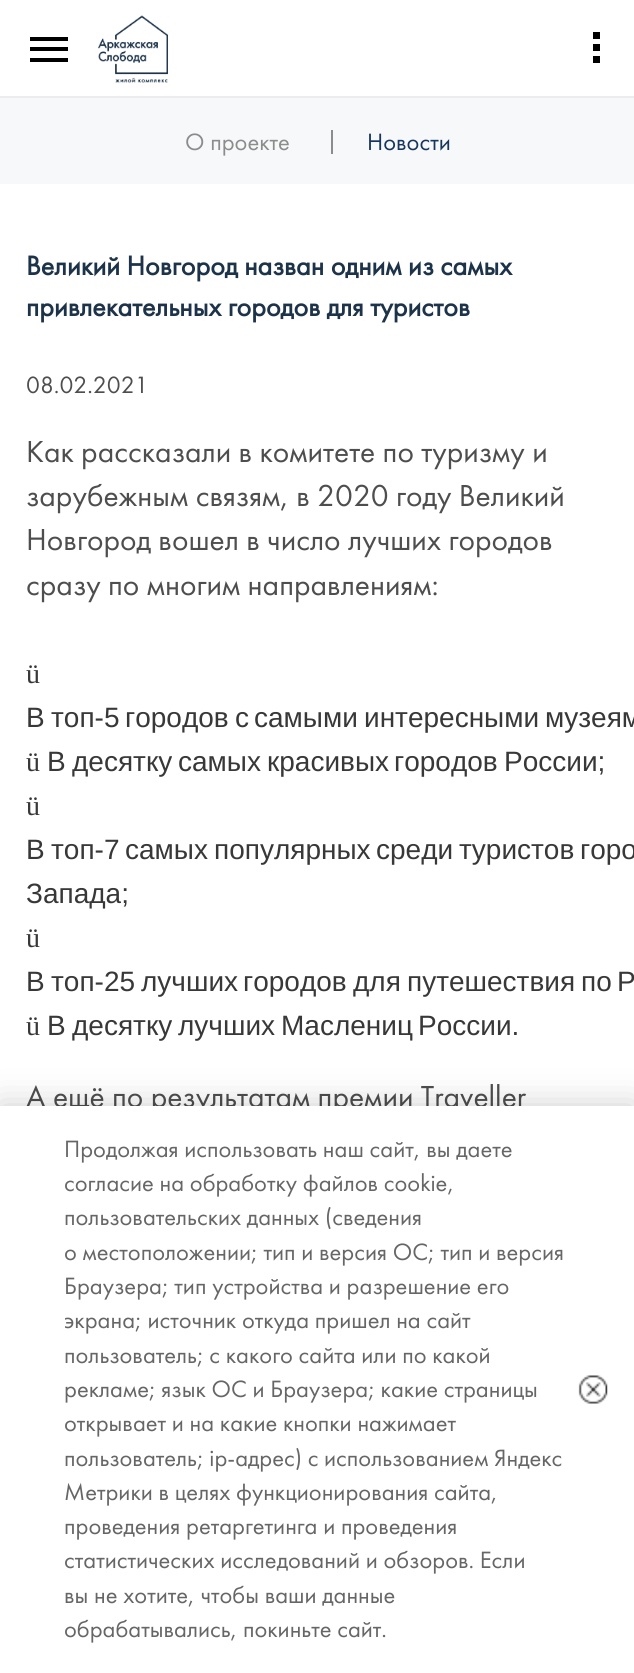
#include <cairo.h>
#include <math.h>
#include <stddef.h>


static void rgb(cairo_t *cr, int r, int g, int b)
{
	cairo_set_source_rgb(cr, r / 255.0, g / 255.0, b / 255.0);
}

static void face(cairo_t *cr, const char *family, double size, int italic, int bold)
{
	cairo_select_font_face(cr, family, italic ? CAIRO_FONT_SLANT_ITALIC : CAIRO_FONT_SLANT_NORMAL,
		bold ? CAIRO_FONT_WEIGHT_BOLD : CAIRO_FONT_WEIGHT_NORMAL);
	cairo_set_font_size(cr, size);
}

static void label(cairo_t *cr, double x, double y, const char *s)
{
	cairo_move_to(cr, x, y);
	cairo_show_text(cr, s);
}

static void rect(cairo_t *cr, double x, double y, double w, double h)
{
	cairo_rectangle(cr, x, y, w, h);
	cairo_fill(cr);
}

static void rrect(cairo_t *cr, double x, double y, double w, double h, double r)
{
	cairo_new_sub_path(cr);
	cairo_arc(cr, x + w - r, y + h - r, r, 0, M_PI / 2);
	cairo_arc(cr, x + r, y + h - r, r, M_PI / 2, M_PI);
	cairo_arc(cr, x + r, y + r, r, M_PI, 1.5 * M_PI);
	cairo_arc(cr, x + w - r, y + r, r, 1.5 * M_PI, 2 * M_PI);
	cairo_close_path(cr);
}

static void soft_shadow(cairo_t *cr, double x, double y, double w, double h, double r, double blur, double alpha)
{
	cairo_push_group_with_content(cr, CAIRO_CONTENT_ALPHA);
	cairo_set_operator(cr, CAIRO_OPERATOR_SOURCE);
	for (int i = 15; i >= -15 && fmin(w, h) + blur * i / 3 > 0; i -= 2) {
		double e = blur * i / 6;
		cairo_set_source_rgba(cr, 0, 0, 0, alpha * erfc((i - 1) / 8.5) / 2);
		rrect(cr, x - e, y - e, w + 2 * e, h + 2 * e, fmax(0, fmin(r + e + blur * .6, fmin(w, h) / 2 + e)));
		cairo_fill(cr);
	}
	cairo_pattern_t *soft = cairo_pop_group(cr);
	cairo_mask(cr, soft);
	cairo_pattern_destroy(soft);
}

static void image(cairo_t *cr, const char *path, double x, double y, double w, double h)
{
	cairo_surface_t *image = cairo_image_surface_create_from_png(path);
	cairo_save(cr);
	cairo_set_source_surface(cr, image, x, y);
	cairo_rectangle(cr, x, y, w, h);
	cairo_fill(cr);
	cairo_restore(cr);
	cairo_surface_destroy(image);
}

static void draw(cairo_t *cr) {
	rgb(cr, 255, 255, 255);
	cairo_paint(cr);
	rgb(cr, 236, 236, 238);
	rect(cr, 0, 96, 634, 2);
	rgb(cr, 0, 0, 0);
	rect(cr, 30, 47, 38, 4);
	rect(cr, 30, 37, 38, 4);
	rect(cr, 30, 58, 38, 4);
	image(cr, "image0.png", 98, 15, 70, 68);
	rect(cr, 593, 44, 7, 7);
	rect(cr, 593, 32, 7, 7);
	rect(cr, 593, 56, 7, 7);
	rgb(cr, 246, 248, 250);
	rect(cr, 0, 98, 634, 86);
	face(cr, "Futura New", 24.5, 0, 0);
	rgb(cr, 140, 140, 140);
	label(cr, 185, 150, "О проекте");
	rect(cr, 331, 130, 2, 24);
	rgb(cr, 24, 53, 93);
	label(cr, 367, 150, "Новости");
	face(cr, "Futura New", 28, 0, 1);
	rgb(cr, 29, 51, 74);
	label(cr, 26, 275, "Великий Новгород назван одним из самых");
	label(cr, 26, 316, "привлекательных городов для туристов");
	face(cr, "Futura New", 24.5, 0, 0);
	rgb(cr, 78, 78, 78);
	label(cr, 26, 393, "08.02.2021");
	face(cr, "Futura New", 31.5, 0, 0);
	label(cr, 26, 462, "Как рассказали в комитете по туризму и");
	label(cr, 26, 506, "зарубежным связям, в 2020 году Великий");
	label(cr, 26, 550, "Новгород вошел в число лучших городов");
	label(cr, 26, 595, "сразу по многим направлениям:");
	face(cr, "Liberation Serif", 28, 0, 0);
	rgb(cr, 56, 56, 56);
	label(cr, 26, 683, "ü");
	face(cr, "Liberation Sans", 28, 0, 0);
	label(cr, 26, 727, "В");
	label(cr, 51, 727, "топ-5");
	label(cr, 125, 727, "городов");
	label(cr, 235, 727, "с");
	label(cr, 254, 727, "самыми");
	label(cr, 364, 727, "интересными");
	label(cr, 545, 727, "музеям");
	face(cr, "Liberation Serif", 28, 0, 0);
	label(cr, 26, 771, "ü");
	face(cr, "Liberation Sans", 28, 0, 0);
	label(cr, 47, 771, "В");
	label(cr, 72, 771, "десятку");
	label(cr, 178, 771, "самых");
	label(cr, 267, 771, "красивых");
	label(cr, 394, 771, "городов");
	label(cr, 504, 771, "России;");
	face(cr, "Liberation Serif", 28, 0, 0);
	label(cr, 26, 815, "ü");
	face(cr, "Liberation Sans", 28, 0, 0);
	label(cr, 26, 859, "В");
	label(cr, 51, 859, "топ-7");
	label(cr, 125, 859, "самых");
	label(cr, 214, 859, "популярных");
	label(cr, 376, 859, "среди");
	label(cr, 459, 859, "туристов");
	label(cr, 580, 859, "горо");
	label(cr, 26, 903, "Запада;");
	rgb(cr, 255, 255, 255);
	rect(cr, 121, 901, 1, 2);
	face(cr, "Liberation Serif", 28, 0, 0);
	rgb(cr, 56, 56, 56);
	label(cr, 26, 947, "ü");
	face(cr, "Liberation Sans", 28, 0, 0);
	label(cr, 26, 991, "В");
	label(cr, 51, 991, "топ-25");
	label(cr, 141, 991, "лучших");
	label(cr, 243, 991, "городов");
	label(cr, 353, 991, "для");
	label(cr, 407, 991, "путешествия");
	label(cr, 581, 991, "по");
	label(cr, 617, 991, "Р");
	face(cr, "Liberation Serif", 28, 0, 0);
	label(cr, 26, 1035, "ü");
	face(cr, "Liberation Sans", 28, 0, 0);
	label(cr, 47, 1035, "В");
	label(cr, 72, 1035, "десятку");
	label(cr, 178, 1035, "лучших");
	label(cr, 281, 1035, "Маслениц");
	label(cr, 418, 1035, "России.");
	face(cr, "Futura New", 31.5, 0, 0);
	rgb(cr, 78, 78, 78);
	label(cr, 26, 1107, "А ещё по результатам премии Traveller");
	rgb(cr, 0, 0, 0);
	soft_shadow(cr, 0, 1106, 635, 567, 0, 17.5, 0.2);
	rgb(cr, 255, 255, 255);
	rect(cr, 0, 1106, 634, 567);
	face(cr, "Futura New", 24.5, 0, 0);
	rgb(cr, 102, 102, 102);
	label(cr, 64, 1157, "Продолжая использовать наш сайт, вы даете");
	label(cr, 64, 1191, "согласие на обработку файлов cookie,");
	label(cr, 64, 1225, "пользовательских данных (сведения");
	label(cr, 64, 1260, "о местоположении; тип и версия ОС; тип и версия");
	label(cr, 64, 1294, "Браузера; тип устройства и разрешение его");
	label(cr, 64, 1328, "экрана; источник откуда пришел на сайт");
	label(cr, 64, 1363, "пользователь; с какого сайта или по какой");
	label(cr, 64, 1397, "рекламе; язык ОС и Браузера; какие страницы");
	image(cr, "image1.png", 578, 1375, 30, 29);
	label(cr, 64, 1431, "открывает и на какие кнопки нажимает");
	label(cr, 64, 1466, "пользователь; ip-адрес) с использованием Яндекс");
	label(cr, 64, 1500, "Метрики в целях функционирования сайта,");
	label(cr, 64, 1534, "проведения ретаргетинга и проведения");
	label(cr, 64, 1568, "статистических исследований и обзоров. Если");
	label(cr, 64, 1603, "вы не хотите, чтобы ваши данные");
	label(cr, 64, 1637, "обрабатывались, покиньте сайт.");
}

int main(void) {
	cairo_surface_t *surface = cairo_image_surface_create(CAIRO_FORMAT_RGB24, 634, 1673);
	cairo_t *cr = cairo_create(surface);
	cairo_font_options_t *options = cairo_font_options_create();
	cairo_font_options_set_hint_metrics(options, CAIRO_HINT_METRICS_OFF);
	cairo_font_options_set_hint_style(options, CAIRO_HINT_STYLE_NONE);
	cairo_set_font_options(cr, options);
	cairo_set_miter_limit(cr, 4);
	draw(cr);
	cairo_surface_write_to_png(surface, "render.png");
	cairo_font_options_destroy(options);
	cairo_destroy(cr);
	cairo_surface_destroy(surface);
	return 0;
}
